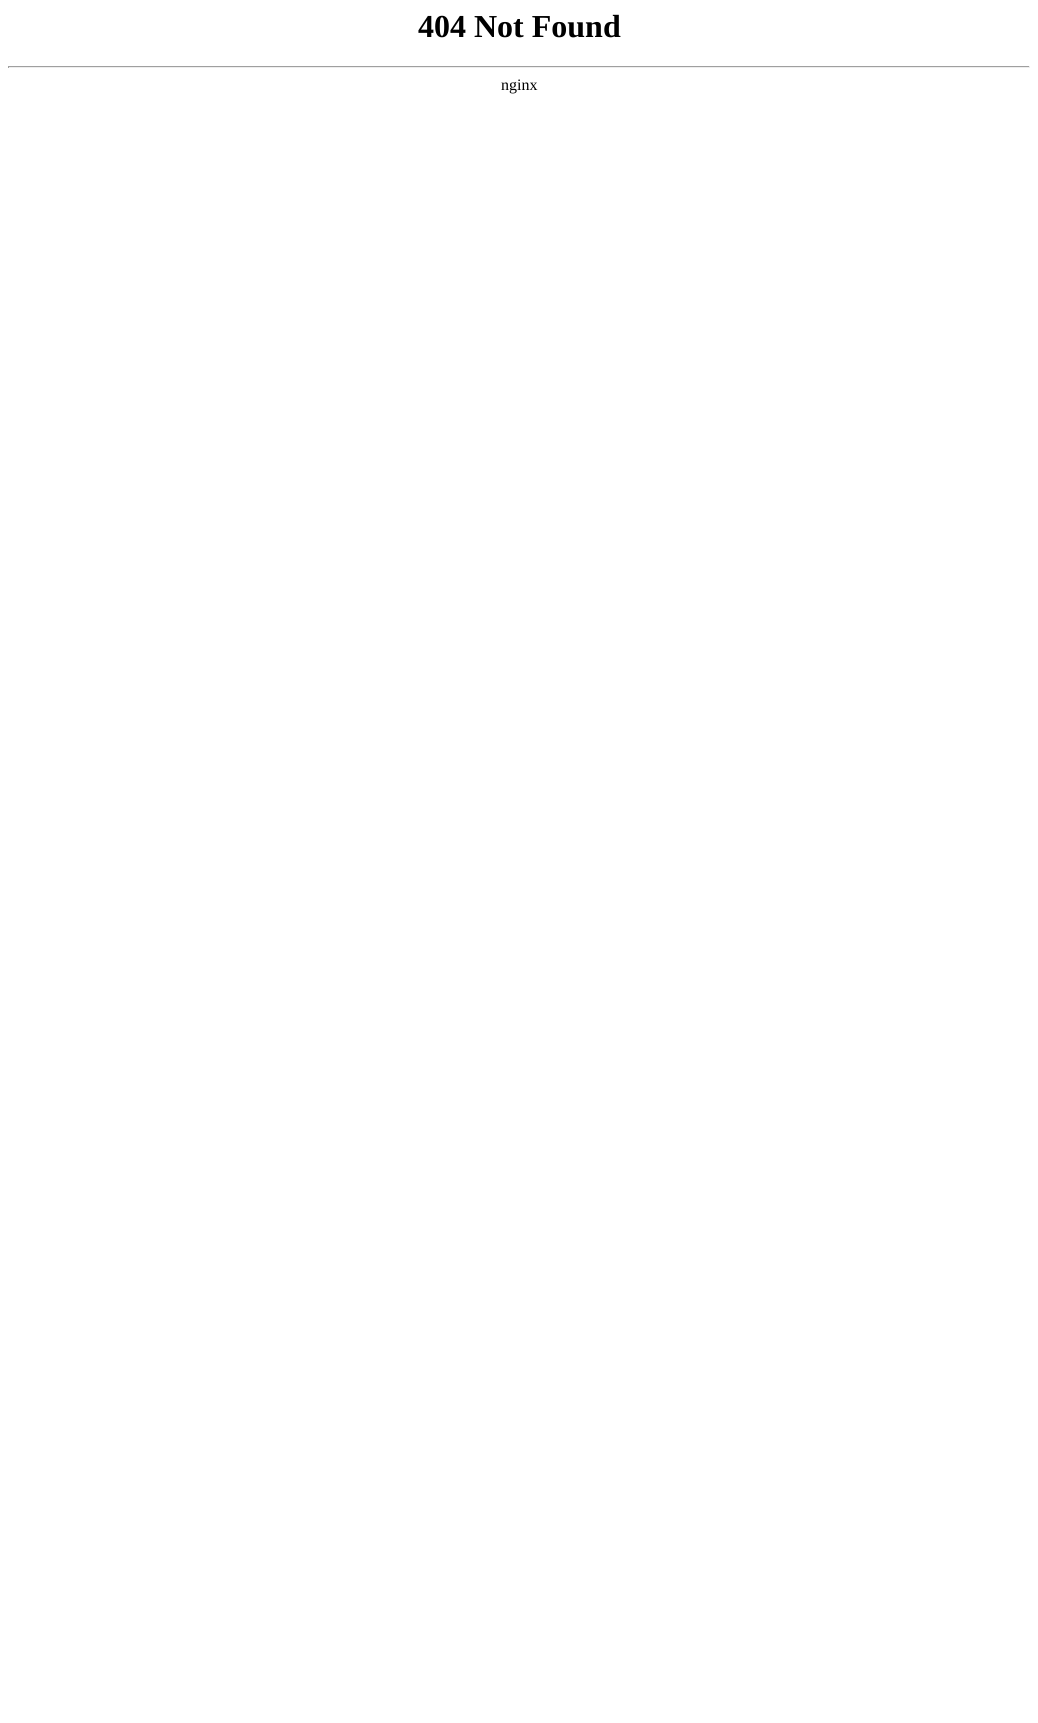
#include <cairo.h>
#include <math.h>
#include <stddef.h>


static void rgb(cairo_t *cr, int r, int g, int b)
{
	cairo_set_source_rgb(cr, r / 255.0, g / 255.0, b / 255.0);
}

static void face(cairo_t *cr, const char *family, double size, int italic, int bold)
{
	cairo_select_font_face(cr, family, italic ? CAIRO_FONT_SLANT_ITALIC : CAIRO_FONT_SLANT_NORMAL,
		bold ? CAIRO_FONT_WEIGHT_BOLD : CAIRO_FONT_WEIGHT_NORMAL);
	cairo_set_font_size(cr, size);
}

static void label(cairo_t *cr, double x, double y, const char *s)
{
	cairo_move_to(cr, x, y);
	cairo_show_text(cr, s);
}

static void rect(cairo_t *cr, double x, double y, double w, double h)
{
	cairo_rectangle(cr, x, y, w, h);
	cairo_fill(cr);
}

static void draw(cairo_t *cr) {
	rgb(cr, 255, 255, 255);
	cairo_paint(cr);
	face(cr, "Liberation Serif", 32, 0, 1);
	rgb(cr, 0, 0, 0);
	label(cr, 418, 37, "404 Not Found");
	rgb(cr, 159, 159, 159);
	rect(cr, 8, 66, 1022, 1);
	rgb(cr, 238, 238, 238);
	rect(cr, 1029, 66, 1, 2);
	rect(cr, 8, 67, 1022, 1);
	rgb(cr, 159, 159, 159);
	rect(cr, 8, 66, 1, 2);
	face(cr, "Liberation Serif", 16, 0, 0);
	rgb(cr, 0, 0, 0);
	label(cr, 501, 90, "nginx");
}

int main(void) {
	cairo_surface_t *surface = cairo_image_surface_create(CAIRO_FORMAT_RGB24, 1038, 1723);
	cairo_t *cr = cairo_create(surface);
	cairo_font_options_t *options = cairo_font_options_create();
	cairo_font_options_set_hint_metrics(options, CAIRO_HINT_METRICS_OFF);
	cairo_font_options_set_hint_style(options, CAIRO_HINT_STYLE_NONE);
	cairo_set_font_options(cr, options);
	cairo_set_miter_limit(cr, 4);
	draw(cr);
	cairo_surface_write_to_png(surface, "render.png");
	cairo_font_options_destroy(options);
	cairo_destroy(cr);
	cairo_surface_destroy(surface);
	return 0;
}
